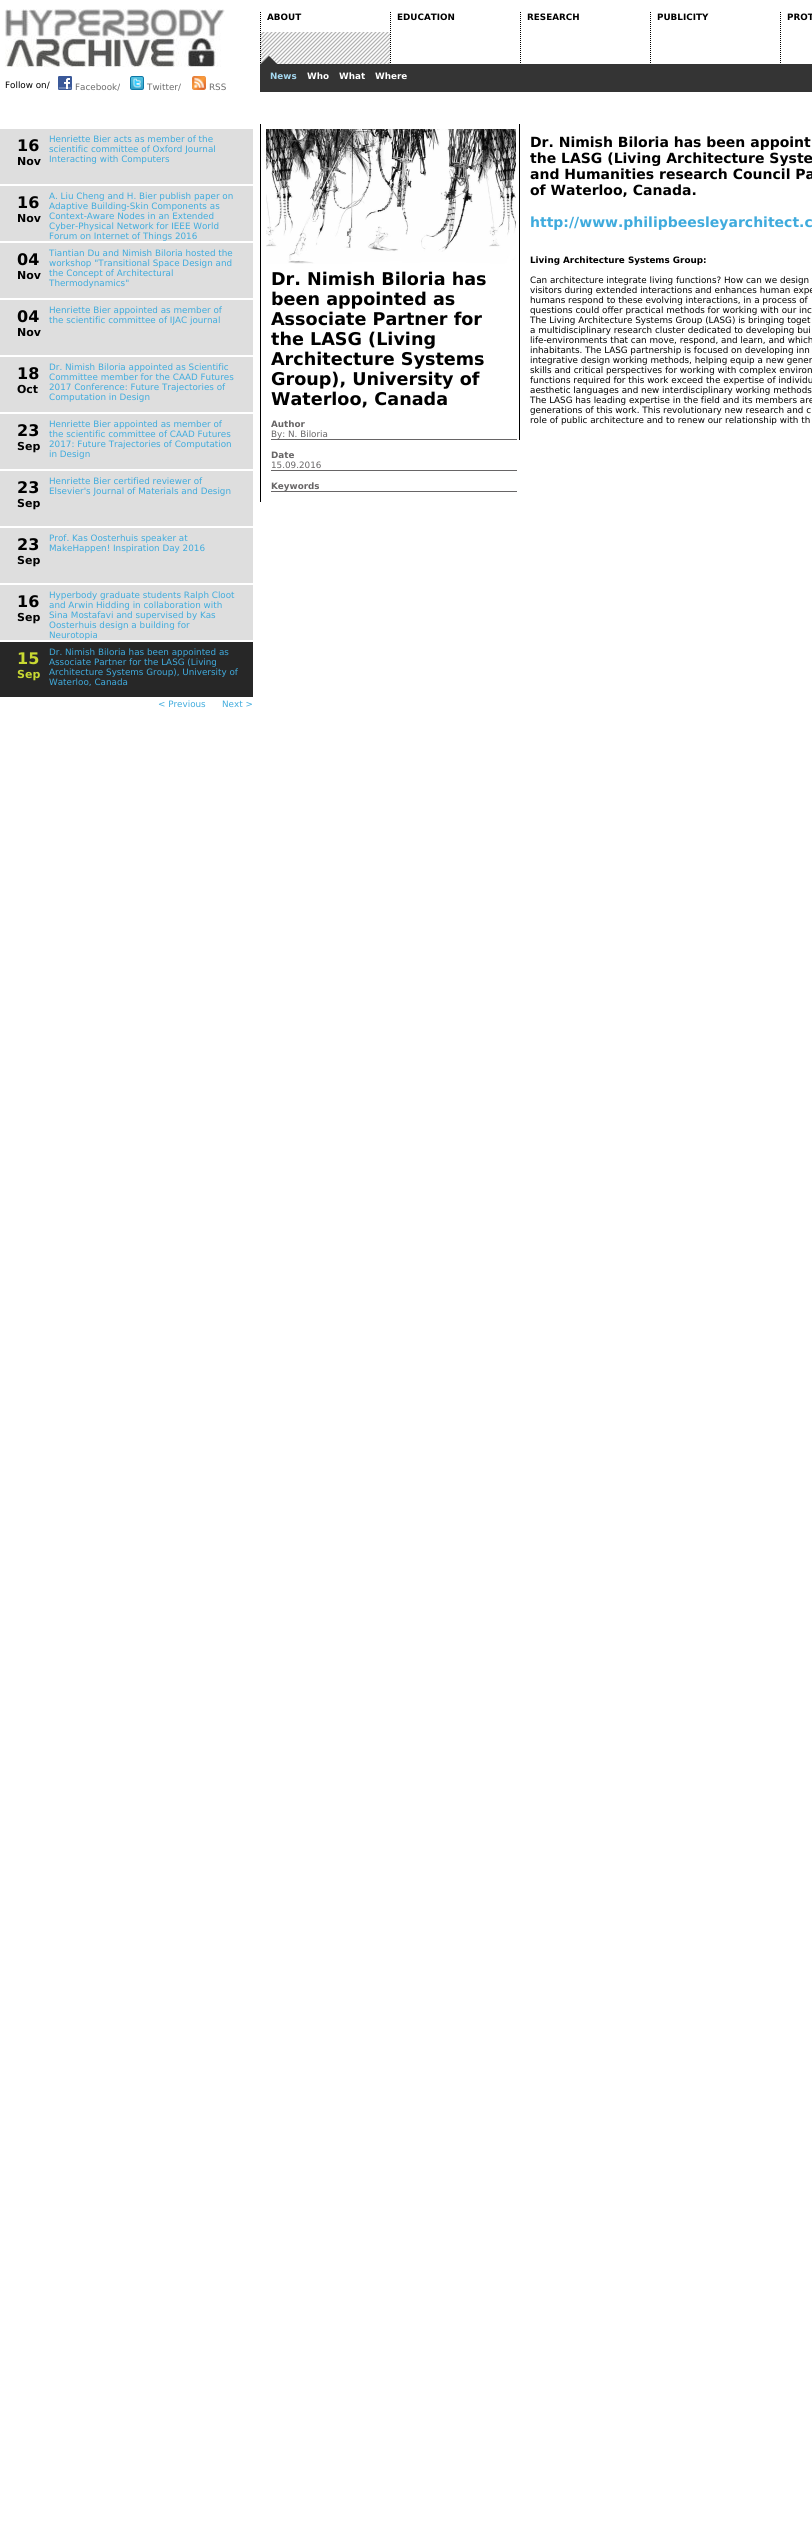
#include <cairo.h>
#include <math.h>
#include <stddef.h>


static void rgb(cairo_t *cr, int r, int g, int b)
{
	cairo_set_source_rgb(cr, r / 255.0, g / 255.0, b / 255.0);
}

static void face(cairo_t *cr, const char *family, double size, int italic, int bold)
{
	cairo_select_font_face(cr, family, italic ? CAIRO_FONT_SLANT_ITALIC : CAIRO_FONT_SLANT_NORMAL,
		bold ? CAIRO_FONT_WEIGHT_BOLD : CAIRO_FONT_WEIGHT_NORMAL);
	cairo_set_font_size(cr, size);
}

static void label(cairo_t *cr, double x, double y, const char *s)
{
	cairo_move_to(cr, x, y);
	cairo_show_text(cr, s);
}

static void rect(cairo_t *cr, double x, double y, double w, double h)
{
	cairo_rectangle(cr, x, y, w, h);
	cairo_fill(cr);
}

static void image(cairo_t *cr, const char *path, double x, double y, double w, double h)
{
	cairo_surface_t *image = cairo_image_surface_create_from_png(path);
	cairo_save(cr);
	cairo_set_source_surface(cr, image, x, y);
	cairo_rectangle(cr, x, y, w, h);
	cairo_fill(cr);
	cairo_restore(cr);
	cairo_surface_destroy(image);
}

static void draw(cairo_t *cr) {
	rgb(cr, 255, 255, 255);
	cairo_paint(cr);
	image(cr, "image0.png", 260, 32, 130, 32);
	cairo_new_path(cr);
	cairo_move_to(cr, 260.5, 12);
	cairo_line_to(cr, 260.5, 64);
	rgb(cr, 0, 0, 0);
	cairo_set_line_width(cr, 1);
	cairo_set_dash(cr, (double[]){1, 1}, 2, 0);
	cairo_stroke(cr);
	face(cr, "DejaVu Sans", 8.8, 0, 1);
	label(cr, 267, 20, "ABOUT");
	cairo_new_path(cr);
	cairo_move_to(cr, 390.5, 12);
	cairo_line_to(cr, 390.5, 64);
	cairo_stroke(cr);
	label(cr, 397, 20, "EDUCATION");
	cairo_new_path(cr);
	cairo_move_to(cr, 520.5, 12);
	cairo_line_to(cr, 520.5, 64);
	cairo_stroke(cr);
	label(cr, 527, 20, "RESEARCH");
	cairo_new_path(cr);
	cairo_move_to(cr, 650.5, 12);
	cairo_line_to(cr, 650.5, 64);
	cairo_stroke(cr);
	label(cr, 657, 20, "PUBLICITY");
	cairo_new_path(cr);
	cairo_move_to(cr, 780.5, 12);
	cairo_line_to(cr, 780.5, 64);
	cairo_stroke(cr);
	label(cr, 787, 20, "PROT");
	image(cr, "image1.png", 5, 9, 220, 58);
	face(cr, "DejaVu Sans", 8.8, 0, 0);
	label(cr, 5, 88, "Follow on/");
	image(cr, "image2.png", 58, 76, 14, 14);
	rgb(cr, 107, 107, 107);
	label(cr, 75, 90, "Facebook/");
	image(cr, "image3.png", 130, 76, 14, 14);
	label(cr, 147, 90, "Twitter/");
	image(cr, "image4.png", 192, 76, 14, 14);
	label(cr, 209, 90, "RSS");
	rgb(cr, 52, 52, 52);
	rect(cr, 260, 64, 552, 28);
	face(cr, "DejaVu Sans", 8.8, 0, 1);
	rgb(cr, 164, 215, 239);
	label(cr, 270, 79, "News");
	rgb(cr, 255, 255, 255);
	label(cr, 307, 79, "Who");
	label(cr, 339, 79, "What");
	label(cr, 375, 79, "Where");
	rgb(cr, 222, 222, 222);
	rect(cr, 0, 129, 253, 55);
	face(cr, "DejaVu Sans", 16, 0, 1);
	rgb(cr, 0, 0, 0);
	label(cr, 17, 151, "16");
	face(cr, "DejaVu Sans", 11, 0, 1);
	label(cr, 17, 165, "Nov");
	face(cr, "DejaVu Sans", 8.8, 0, 0);
	rgb(cr, 63, 171, 221);
	label(cr, 49, 142, "Henriette Bier acts as member of the");
	label(cr, 49, 152, "scientific committee of Oxford Journal");
	label(cr, 49, 162, "Interacting with Computers");
	rgb(cr, 222, 222, 222);
	rect(cr, 0, 186, 253, 55);
	face(cr, "DejaVu Sans", 16, 0, 1);
	rgb(cr, 0, 0, 0);
	label(cr, 17, 208, "16");
	face(cr, "DejaVu Sans", 11, 0, 1);
	label(cr, 17, 222, "Nov");
	face(cr, "DejaVu Sans", 8.8, 0, 0);
	rgb(cr, 63, 171, 221);
	label(cr, 49, 199, "A. Liu Cheng and H. Bier publish paper on");
	label(cr, 49, 209, "Adaptive Building-Skin Components as");
	label(cr, 49, 219, "Context-Aware Nodes in an Extended");
	label(cr, 49, 229, "Cyber-Physical Network for IEEE World");
	label(cr, 49, 239, "Forum on Internet of Things 2016");
	rgb(cr, 222, 222, 222);
	rect(cr, 0, 243, 253, 55);
	face(cr, "DejaVu Sans", 16, 0, 1);
	rgb(cr, 0, 0, 0);
	label(cr, 17, 265, "04");
	face(cr, "DejaVu Sans", 11, 0, 1);
	label(cr, 17, 279, "Nov");
	face(cr, "DejaVu Sans", 8.8, 0, 0);
	rgb(cr, 63, 171, 221);
	label(cr, 49, 256, "Tiantian Du and Nimish Biloria hosted the");
	label(cr, 49, 266, "workshop \"Transitional Space Design and");
	label(cr, 49, 276, "the Concept of Architectural");
	label(cr, 49, 286, "Thermodynamics\"");
	rgb(cr, 222, 222, 222);
	rect(cr, 0, 300, 253, 55);
	face(cr, "DejaVu Sans", 16, 0, 1);
	rgb(cr, 0, 0, 0);
	label(cr, 17, 322, "04");
	face(cr, "DejaVu Sans", 11, 0, 1);
	label(cr, 17, 336, "Nov");
	face(cr, "DejaVu Sans", 8.8, 0, 0);
	rgb(cr, 63, 171, 221);
	label(cr, 49, 313, "Henriette Bier appointed as member of");
	label(cr, 49, 323, "the scientific committee of IJAC journal");
	rgb(cr, 222, 222, 222);
	rect(cr, 0, 357, 253, 55);
	face(cr, "DejaVu Sans", 16, 0, 1);
	rgb(cr, 0, 0, 0);
	label(cr, 17, 379, "18");
	face(cr, "DejaVu Sans", 11, 0, 1);
	label(cr, 17, 393, "Oct");
	face(cr, "DejaVu Sans", 8.8, 0, 0);
	rgb(cr, 63, 171, 221);
	label(cr, 49, 370, "Dr. Nimish Biloria appointed as Scientific");
	label(cr, 49, 380, "Committee member for the CAAD Futures");
	label(cr, 49, 390, "2017 Conference: Future Trajectories of");
	label(cr, 49, 400, "Computation in Design");
	rgb(cr, 222, 222, 222);
	rect(cr, 0, 414, 253, 55);
	face(cr, "DejaVu Sans", 16, 0, 1);
	rgb(cr, 0, 0, 0);
	label(cr, 17, 436, "23");
	face(cr, "DejaVu Sans", 11, 0, 1);
	label(cr, 17, 450, "Sep");
	face(cr, "DejaVu Sans", 8.8, 0, 0);
	rgb(cr, 63, 171, 221);
	label(cr, 49, 427, "Henriette Bier appointed as member of");
	label(cr, 49, 437, "the scientific committee of CAAD Futures");
	label(cr, 49, 447, "2017: Future Trajectories of Computation");
	label(cr, 49, 457, "in Design");
	rgb(cr, 222, 222, 222);
	rect(cr, 0, 471, 253, 55);
	face(cr, "DejaVu Sans", 16, 0, 1);
	rgb(cr, 0, 0, 0);
	label(cr, 17, 493, "23");
	face(cr, "DejaVu Sans", 11, 0, 1);
	label(cr, 17, 507, "Sep");
	face(cr, "DejaVu Sans", 8.8, 0, 0);
	rgb(cr, 63, 171, 221);
	label(cr, 49, 484, "Henriette Bier certified reviewer of");
	label(cr, 49, 494, "Elsevier's Journal of Materials and Design");
	rgb(cr, 222, 222, 222);
	rect(cr, 0, 528, 253, 55);
	face(cr, "DejaVu Sans", 16, 0, 1);
	rgb(cr, 0, 0, 0);
	label(cr, 17, 550, "23");
	face(cr, "DejaVu Sans", 11, 0, 1);
	label(cr, 17, 564, "Sep");
	face(cr, "DejaVu Sans", 8.8, 0, 0);
	rgb(cr, 63, 171, 221);
	label(cr, 49, 541, "Prof. Kas Oosterhuis speaker at");
	label(cr, 49, 551, "MakeHappen! Inspiration Day 2016");
	rgb(cr, 222, 222, 222);
	rect(cr, 0, 585, 253, 55);
	face(cr, "DejaVu Sans", 16, 0, 1);
	rgb(cr, 0, 0, 0);
	label(cr, 17, 607, "16");
	face(cr, "DejaVu Sans", 11, 0, 1);
	label(cr, 17, 621, "Sep");
	face(cr, "DejaVu Sans", 8.8, 0, 0);
	rgb(cr, 63, 171, 221);
	label(cr, 49, 598, "Hyperbody graduate students Ralph Cloot");
	label(cr, 49, 608, "and Arwin Hidding in collaboration with");
	label(cr, 49, 618, "Sina Mostafavi and supervised by Kas");
	label(cr, 49, 628, "Oosterhuis design a building for");
	label(cr, 49, 638, "Neurotopia");
	rgb(cr, 39, 39, 39);
	rect(cr, 0, 642, 253, 55);
	face(cr, "DejaVu Sans", 16, 0, 1);
	rgb(cr, 200, 216, 50);
	label(cr, 17, 664, "15");
	face(cr, "DejaVu Sans", 11, 0, 1);
	label(cr, 17, 678, "Sep");
	face(cr, "DejaVu Sans", 8.8, 0, 0);
	rgb(cr, 63, 171, 221);
	label(cr, 49, 655, "Dr. Nimish Biloria has been appointed as");
	label(cr, 49, 665, "Associate Partner for the LASG (Living");
	label(cr, 49, 675, "Architecture Systems Group), University of");
	label(cr, 49, 685, "Waterloo, Canada");
	label(cr, 158, 707, "< Previous");
	label(cr, 222, 707, "Next >");
	rgb(cr, 0, 0, 0);
	rect(cr, 260, 124, 1, 378);
	image(cr, "image5.png", 266, 129, 250, 135);
	face(cr, "DejaVu Sans", 17.6, 0, 1);
	label(cr, 271, 285, "Dr. Nimish Biloria has");
	label(cr, 271, 305, "been appointed as");
	label(cr, 271, 325, "Associate Partner for");
	label(cr, 271, 345, "the LASG (Living");
	label(cr, 271, 365, "Architecture Systems");
	label(cr, 271, 385, "Group), University of");
	label(cr, 271, 405, "Waterloo, Canada");
	face(cr, "DejaVu Sans", 8.8, 0, 1);
	rgb(cr, 103, 101, 102);
	label(cr, 271, 427, "Author");
	rect(cr, 271, 439, 246, 1);
	face(cr, "DejaVu Sans", 8.8, 0, 0);
	label(cr, 271, 437, "By: N. Biloria");
	face(cr, "DejaVu Sans", 8.8, 0, 1);
	label(cr, 271, 458, "Date");
	rect(cr, 271, 470, 246, 1);
	face(cr, "DejaVu Sans", 8.8, 0, 0);
	label(cr, 271, 468, "15.09.2016");
	face(cr, "DejaVu Sans", 8.8, 0, 1);
	label(cr, 271, 489, "Keywords");
	rect(cr, 271, 491, 246, 1);
	rgb(cr, 0, 0, 0);
	rect(cr, 519, 124, 1, 316);
	face(cr, "DejaVu Sans", 14, 0, 1);
	label(cr, 530, 147, "Dr. Nimish Biloria has been appoint");
	label(cr, 530, 163, "the LASG (Living Architecture Syste");
	label(cr, 530, 179, "and Humanities research Council Pa");
	label(cr, 530, 195, "of Waterloo, Canada.");
	rgb(cr, 63, 171, 221);
	label(cr, 530, 227, "http://www.philipbeesleyarchitect.c");
	face(cr, "DejaVu Sans", 8.8, 0, 1);
	rgb(cr, 0, 0, 0);
	label(cr, 530, 263, "Living Architecture Systems Group:");
	face(cr, "DejaVu Sans", 8.8, 0, 0);
	label(cr, 530, 283, "Can architecture integrate living functions? How can we design");
	label(cr, 530, 293, "visitors during extended interactions and enhances human expe");
	label(cr, 530, 303, "humans respond to these evolving interactions, in a process of");
	label(cr, 530, 313, "questions could offer practical methods for working with our inc");
	label(cr, 530, 323, "The Living Architecture Systems Group (LASG) is bringing toget");
	label(cr, 530, 333, "a multidisciplinary research cluster dedicated to developing bui");
	label(cr, 530, 343, "life-environments that can move, respond, and learn, and which");
	label(cr, 530, 353, "inhabitants. The LASG partnership is focused on developing inn");
	label(cr, 530, 363, "integrative design working methods, helping equip a new gener");
	label(cr, 530, 373, "skills and critical perspectives for working with complex environ");
	label(cr, 530, 383, "functions required for this work exceed the expertise of individu");
	label(cr, 530, 393, "aesthetic languages and new interdisciplinary working methods");
	label(cr, 530, 403, "The LASG has leading expertise in the field and its members are");
	label(cr, 530, 413, "generations of this work. This revolutionary new research and c");
	label(cr, 530, 423, "role of public architecture and to renew our relationship with th");
}

int main(void) {
	cairo_surface_t *surface = cairo_image_surface_create(CAIRO_FORMAT_RGB24, 812, 2522);
	cairo_t *cr = cairo_create(surface);
	cairo_font_options_t *options = cairo_font_options_create();
	cairo_font_options_set_hint_metrics(options, CAIRO_HINT_METRICS_OFF);
	cairo_font_options_set_hint_style(options, CAIRO_HINT_STYLE_NONE);
	cairo_set_font_options(cr, options);
	cairo_set_miter_limit(cr, 4);
	draw(cr);
	cairo_surface_write_to_png(surface, "render.png");
	cairo_font_options_destroy(options);
	cairo_destroy(cr);
	cairo_surface_destroy(surface);
	return 0;
}
